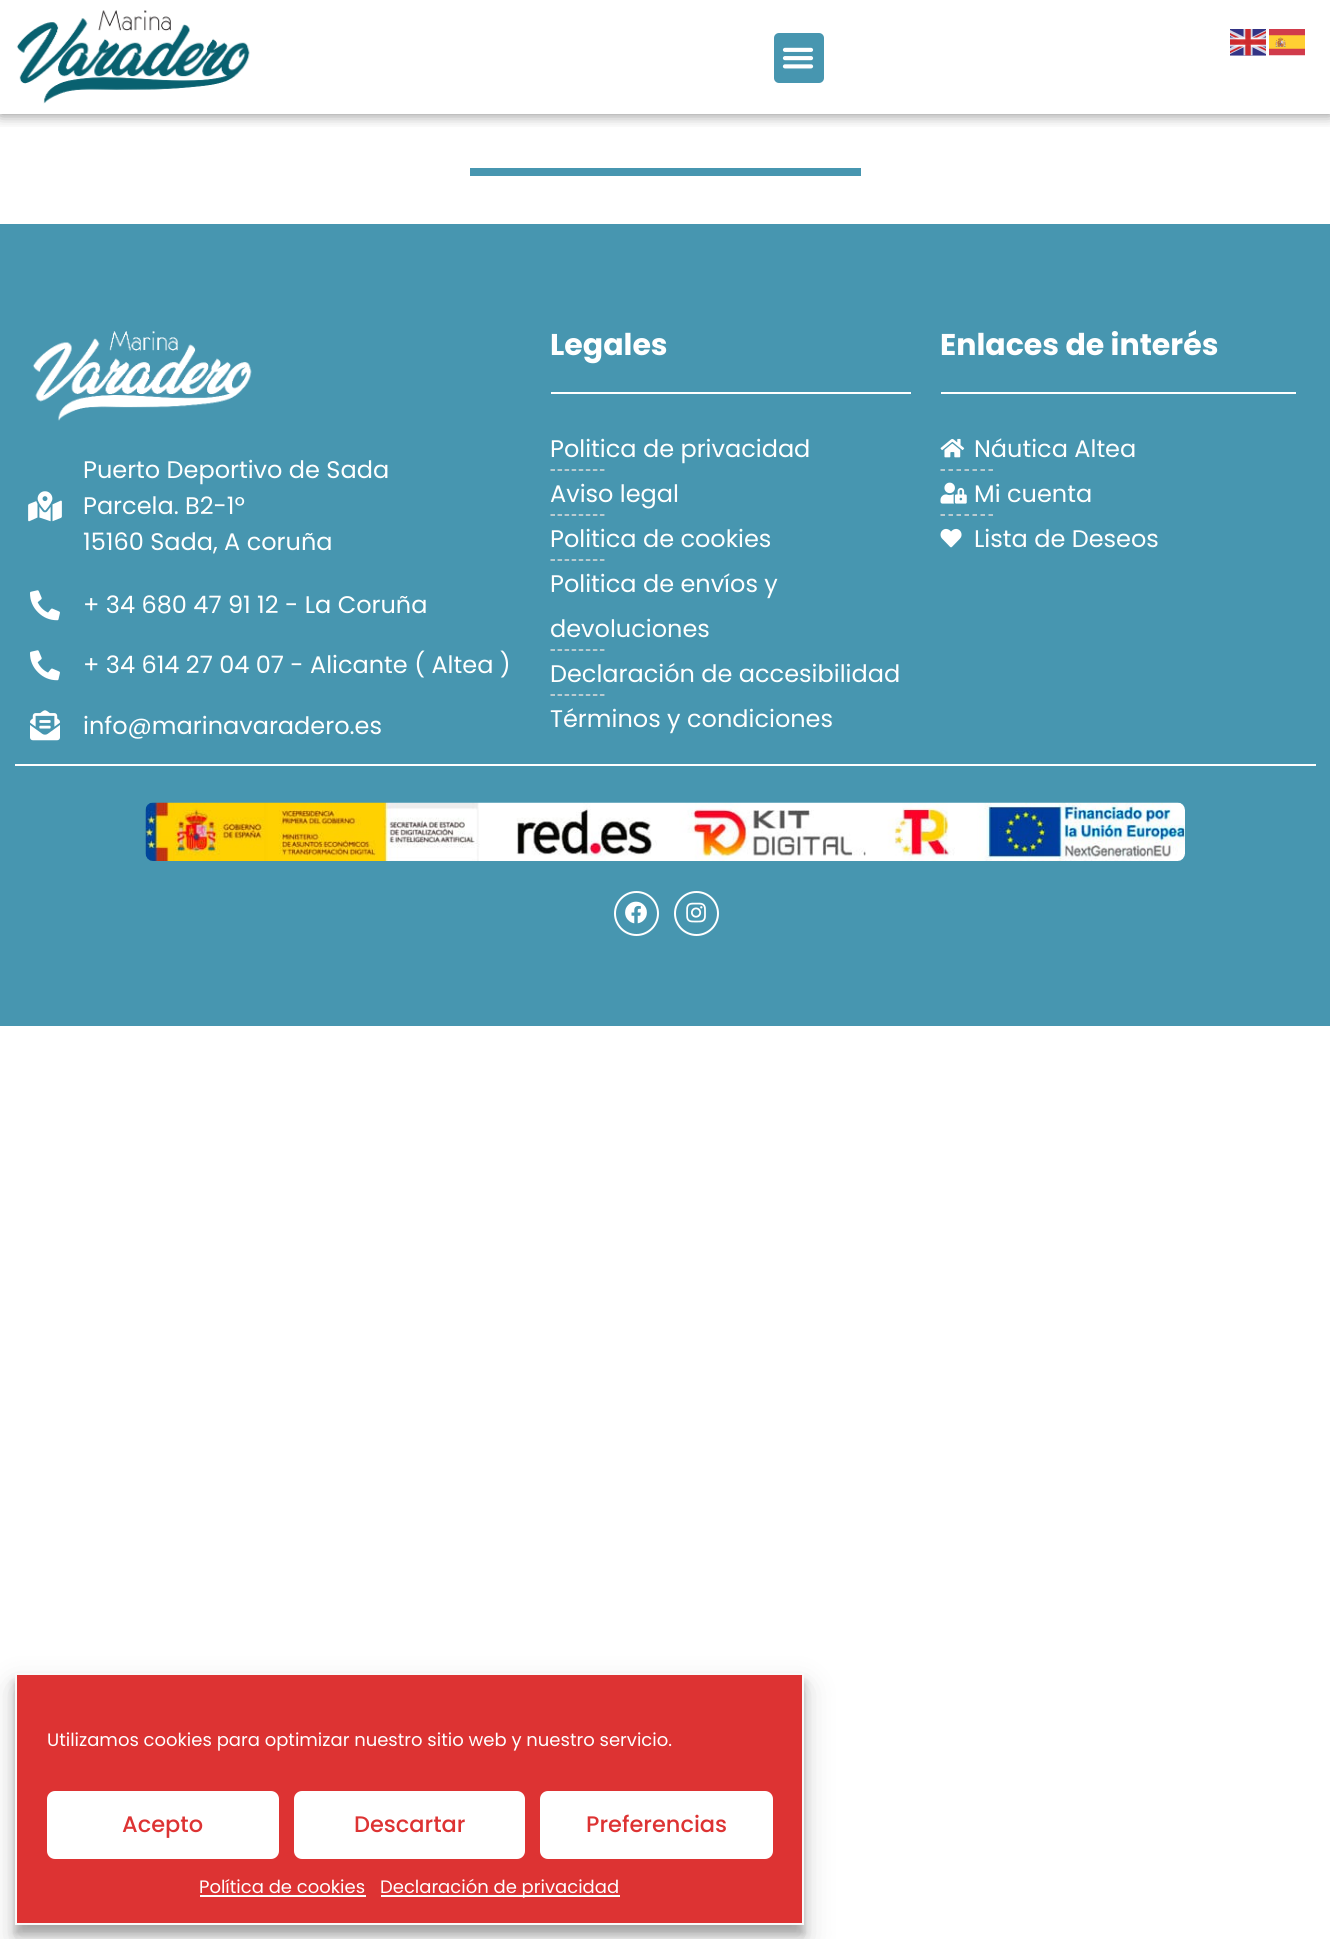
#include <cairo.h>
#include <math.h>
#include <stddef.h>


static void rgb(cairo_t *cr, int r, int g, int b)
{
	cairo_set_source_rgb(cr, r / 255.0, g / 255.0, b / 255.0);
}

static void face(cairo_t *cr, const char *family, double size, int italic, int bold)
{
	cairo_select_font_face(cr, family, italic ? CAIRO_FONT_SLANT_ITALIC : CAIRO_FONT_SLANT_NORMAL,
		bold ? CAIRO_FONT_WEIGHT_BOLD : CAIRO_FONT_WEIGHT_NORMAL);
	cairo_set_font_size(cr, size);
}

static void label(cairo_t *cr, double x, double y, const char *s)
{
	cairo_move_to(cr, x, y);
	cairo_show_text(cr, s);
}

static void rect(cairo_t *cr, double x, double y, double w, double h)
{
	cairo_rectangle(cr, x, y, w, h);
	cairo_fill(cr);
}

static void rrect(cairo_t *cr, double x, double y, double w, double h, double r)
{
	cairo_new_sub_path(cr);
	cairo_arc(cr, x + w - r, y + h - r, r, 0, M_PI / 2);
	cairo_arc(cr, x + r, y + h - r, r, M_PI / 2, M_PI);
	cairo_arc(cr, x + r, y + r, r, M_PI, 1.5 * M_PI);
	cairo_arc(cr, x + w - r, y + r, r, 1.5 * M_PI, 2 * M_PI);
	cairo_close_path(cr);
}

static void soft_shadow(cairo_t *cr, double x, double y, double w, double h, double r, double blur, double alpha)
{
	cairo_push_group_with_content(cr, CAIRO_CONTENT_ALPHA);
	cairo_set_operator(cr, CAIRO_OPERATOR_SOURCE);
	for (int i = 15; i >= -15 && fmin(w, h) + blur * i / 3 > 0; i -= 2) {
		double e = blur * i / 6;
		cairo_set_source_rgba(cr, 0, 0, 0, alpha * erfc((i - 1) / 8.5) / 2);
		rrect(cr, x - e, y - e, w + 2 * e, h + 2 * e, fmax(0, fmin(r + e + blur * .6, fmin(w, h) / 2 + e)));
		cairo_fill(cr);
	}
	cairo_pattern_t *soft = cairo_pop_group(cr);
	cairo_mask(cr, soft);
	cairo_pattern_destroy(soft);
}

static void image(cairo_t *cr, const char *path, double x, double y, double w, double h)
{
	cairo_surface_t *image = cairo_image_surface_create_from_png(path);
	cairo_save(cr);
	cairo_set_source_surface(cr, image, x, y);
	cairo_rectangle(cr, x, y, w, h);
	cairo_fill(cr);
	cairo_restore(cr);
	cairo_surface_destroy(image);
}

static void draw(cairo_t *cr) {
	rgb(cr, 255, 255, 255);
	cairo_paint(cr);
	cairo_save(cr);
	cairo_rectangle(cr, 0, 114, 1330, 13);
	cairo_clip(cr);
	rgb(cr, 0, 0, 0);
	soft_shadow(cr, 0, 0, 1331, 114, 0, 7.5, 0.5);
	cairo_restore(cr);
	image(cr, "image0.png", 16, 10, 234, 94);
	rgb(cr, 71, 150, 176);
	rrect(cr, 774, 33, 50, 50, 5);
	cairo_fill(cr);
	image(cr, "image1.png", 782, 47, 32, 22);
	image(cr, "image2.png", 1230, 29, 36, 27);
	image(cr, "image3.png", 1269, 29, 36, 27);
	rect(cr, 470, 168, 391, 8);
	rect(cr, 0, 224, 1330, 802);
	image(cr, "image4.png", 32, 331, 220, 90);
	image(cr, "image5.png", 28, 491, 34, 31);
	face(cr, "Poppins", 24, 0, 0);
	rgb(cr, 255, 255, 255);
	label(cr, 83, 478, "Puerto Deportivo de Sada");
	label(cr, 83, 514, "Parcela. B2-1º");
	label(cr, 83, 550, "15160 Sada, A coruña");
	image(cr, "image6.png", 30, 590, 30, 31);
	label(cr, 83, 613, "+ 34 680 47 91 12 - La Coruña");
	image(cr, "image6.png", 30, 650, 30, 31);
	label(cr, 83, 673, "+ 34 614 27 04 07 - Alicante ( Altea )");
	image(cr, "image7.png", 30, 710, 30, 31);
	label(cr, 83, 734, "info@marinavaradero.es");
	face(cr, "Poppins", 30, 0, 1);
	label(cr, 550, 355, "Legales");
	rect(cr, 551, 392, 360, 2);
	face(cr, "Poppins", 24, 0, 0);
	label(cr, 550, 457, "Politica de privacidad");
	cairo_new_path(cr);
	cairo_move_to(cr, 550.5, 470);
	cairo_line_to(cr, 604.5, 470);
	rgb(cr, 221, 221, 221);
	cairo_set_line_width(cr, 1.5);
	cairo_set_dash(cr, (double[]){4.5, 2.56}, 2, 0);
	cairo_stroke(cr);
	rgb(cr, 255, 255, 255);
	label(cr, 550, 502, "Aviso legal");
	cairo_new_path(cr);
	cairo_move_to(cr, 550.5, 515);
	cairo_line_to(cr, 604.5, 515);
	rgb(cr, 221, 221, 221);
	cairo_stroke(cr);
	rgb(cr, 255, 255, 255);
	label(cr, 550, 547, "Politica de cookies");
	cairo_new_path(cr);
	cairo_move_to(cr, 550.5, 560);
	cairo_line_to(cr, 604.5, 560);
	rgb(cr, 221, 221, 221);
	cairo_stroke(cr);
	rgb(cr, 255, 255, 255);
	label(cr, 550, 592, "Politica de envíos y");
	label(cr, 550, 637, "devoluciones");
	cairo_new_path(cr);
	cairo_move_to(cr, 550.5, 650);
	cairo_line_to(cr, 604.5, 650);
	rgb(cr, 221, 221, 221);
	cairo_stroke(cr);
	rgb(cr, 255, 255, 255);
	label(cr, 550, 682, "Declaración de accesibilidad");
	cairo_new_path(cr);
	cairo_move_to(cr, 550.5, 695);
	cairo_line_to(cr, 604.5, 695);
	rgb(cr, 221, 221, 221);
	cairo_stroke(cr);
	rgb(cr, 255, 255, 255);
	label(cr, 550, 727, "Términos y condiciones");
	face(cr, "Poppins", 30, 0, 1);
	label(cr, 940, 355, "Enlaces de interés");
	rect(cr, 941, 392, 355, 2);
	image(cr, "image8.png", 940, 438, 25, 20);
	face(cr, "Poppins", 24, 0, 0);
	label(cr, 974, 457, "Náutica Altea");
	cairo_new_path(cr);
	cairo_move_to(cr, 940.5, 470);
	cairo_line_to(cr, 993, 470);
	rgb(cr, 221, 221, 221);
	cairo_set_dash(cr, (double[]){4.5, 3.5}, 2, 0);
	cairo_stroke(cr);
	image(cr, "image9.png", 940, 482, 27, 22);
	rgb(cr, 255, 255, 255);
	label(cr, 974, 502, "Mi cuenta");
	cairo_new_path(cr);
	cairo_move_to(cr, 940.5, 515);
	cairo_line_to(cr, 993, 515);
	rgb(cr, 221, 221, 221);
	cairo_stroke(cr);
	image(cr, "image10.png", 940, 528, 22, 20);
	rgb(cr, 255, 255, 255);
	label(cr, 974, 547, "Lista de Deseos");
	rect(cr, 15, 764, 1301, 2);
	image(cr, "image11.png", 145, 802, 1040, 59);
	cairo_arc(cr, 636.5, 913.5, 21.5, 0, 2 * M_PI);
	cairo_set_line_width(cr, 2);
	cairo_set_dash(cr, NULL, 0, 0);
	cairo_stroke(cr);
	image(cr, "image12.png", 625, 901, 22, 23);
	cairo_arc(cr, 696.5, 913.5, 21.5, 0, 2 * M_PI);
	cairo_stroke(cr);
	image(cr, "image13.png", 686, 902, 20, 21);
	rgb(cr, 0, 0, 0);
	soft_shadow(cr, 15, 1682, 789, 252, 0, 4.5, 0.23);
	soft_shadow(cr, 15, 1688, 789, 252, 0, 15, 0.19);
	rgb(cr, 221, 51, 51);
	cairo_rectangle(cr, 16, 1674, 787, 250);
	cairo_fill_preserve(cr);
	rgb(cr, 249, 249, 249);
	cairo_stroke(cr);
	face(cr, "Poppins", 18, 0, 0);
	rgb(cr, 255, 255, 255);
	label(cr, 47, 1746, "Utilizamos cookies para optimizar nuestro sitio web y nuestro servicio.");
	rrect(cr, 48, 1792, 230, 66, 7);
	cairo_fill_preserve(cr);
	cairo_stroke(cr);
	face(cr, "Poppins Medium", 22.5, 0, 0);
	rgb(cr, 221, 51, 51);
	label(cr, 122, 1832, "Acepto");
	rgb(cr, 255, 255, 255);
	rrect(cr, 295, 1792, 229, 66, 7);
	cairo_fill_preserve(cr);
	cairo_stroke(cr);
	rgb(cr, 221, 51, 51);
	label(cr, 354, 1832, "Descartar");
	rgb(cr, 255, 255, 255);
	rrect(cr, 541, 1792, 231, 66, 7);
	cairo_fill_preserve(cr);
	cairo_stroke(cr);
	rgb(cr, 221, 51, 51);
	label(cr, 586, 1832, "Preferencias");
	face(cr, "Poppins", 18, 0, 0);
	rgb(cr, 255, 255, 255);
	label(cr, 199, 1893, "Política de cookies");
	rect(cr, 200, 1895, 166, 2);
	rect(cr, 381, 1895, 239, 2);
	label(cr, 380, 1893, "Declaración de privacidad");
}

int main(void) {
	cairo_surface_t *surface = cairo_image_surface_create(CAIRO_FORMAT_RGB24, 1330, 1939);
	cairo_t *cr = cairo_create(surface);
	cairo_font_options_t *options = cairo_font_options_create();
	cairo_font_options_set_hint_metrics(options, CAIRO_HINT_METRICS_OFF);
	cairo_font_options_set_hint_style(options, CAIRO_HINT_STYLE_NONE);
	cairo_set_font_options(cr, options);
	cairo_set_miter_limit(cr, 4);
	draw(cr);
	cairo_surface_write_to_png(surface, "render.png");
	cairo_font_options_destroy(options);
	cairo_destroy(cr);
	cairo_surface_destroy(surface);
	return 0;
}
